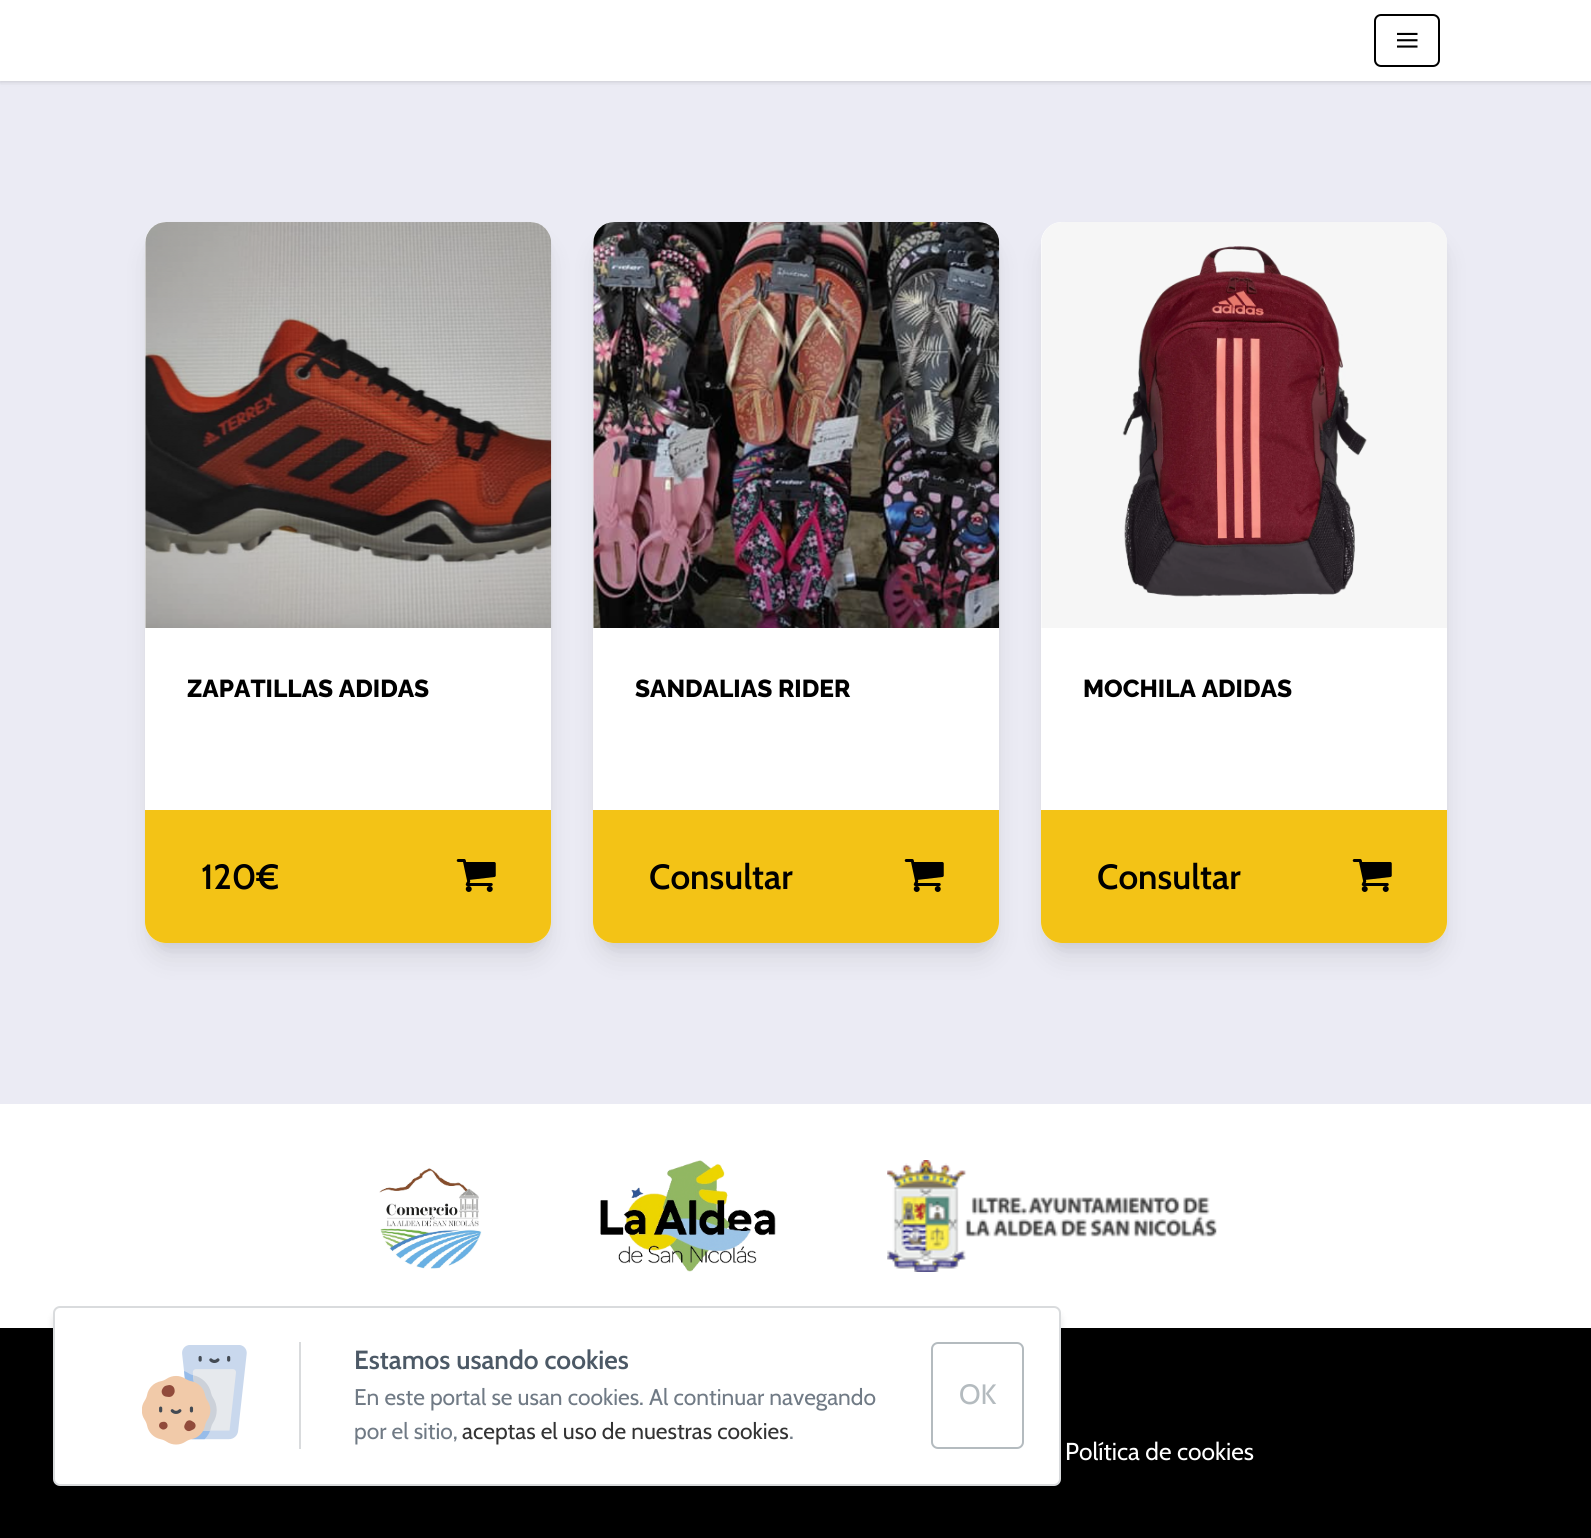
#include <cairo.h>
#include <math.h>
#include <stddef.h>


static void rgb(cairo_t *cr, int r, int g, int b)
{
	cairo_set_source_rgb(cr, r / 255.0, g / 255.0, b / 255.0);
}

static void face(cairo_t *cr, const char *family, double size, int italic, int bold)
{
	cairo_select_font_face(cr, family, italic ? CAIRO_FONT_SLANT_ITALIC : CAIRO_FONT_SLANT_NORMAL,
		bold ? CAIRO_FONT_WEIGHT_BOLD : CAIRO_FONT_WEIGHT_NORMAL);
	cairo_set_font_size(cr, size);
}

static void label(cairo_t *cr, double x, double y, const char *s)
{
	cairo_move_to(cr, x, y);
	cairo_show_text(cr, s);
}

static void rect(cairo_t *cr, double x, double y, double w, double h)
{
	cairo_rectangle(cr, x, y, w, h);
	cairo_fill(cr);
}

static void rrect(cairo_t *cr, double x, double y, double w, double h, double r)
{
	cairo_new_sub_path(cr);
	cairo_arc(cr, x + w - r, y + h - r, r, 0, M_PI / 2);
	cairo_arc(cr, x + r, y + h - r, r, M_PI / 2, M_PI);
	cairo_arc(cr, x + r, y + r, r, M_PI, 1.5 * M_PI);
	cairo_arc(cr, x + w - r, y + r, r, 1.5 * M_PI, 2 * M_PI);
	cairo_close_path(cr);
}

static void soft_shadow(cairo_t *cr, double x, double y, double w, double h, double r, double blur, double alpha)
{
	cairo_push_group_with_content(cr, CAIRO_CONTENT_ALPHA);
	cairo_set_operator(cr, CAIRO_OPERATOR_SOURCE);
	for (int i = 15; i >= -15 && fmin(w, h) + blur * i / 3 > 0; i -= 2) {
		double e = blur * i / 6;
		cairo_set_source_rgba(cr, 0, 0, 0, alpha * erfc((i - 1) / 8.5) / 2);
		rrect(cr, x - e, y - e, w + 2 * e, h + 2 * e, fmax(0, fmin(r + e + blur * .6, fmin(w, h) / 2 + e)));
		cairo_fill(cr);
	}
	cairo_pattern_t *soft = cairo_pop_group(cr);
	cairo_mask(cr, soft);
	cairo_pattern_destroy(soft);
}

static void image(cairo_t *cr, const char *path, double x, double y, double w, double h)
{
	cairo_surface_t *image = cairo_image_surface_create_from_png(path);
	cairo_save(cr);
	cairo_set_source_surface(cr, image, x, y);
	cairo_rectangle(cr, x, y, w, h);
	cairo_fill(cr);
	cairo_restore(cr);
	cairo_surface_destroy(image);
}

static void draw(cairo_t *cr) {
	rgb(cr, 235, 235, 244);
	cairo_paint(cr);
	rgb(cr, 0, 0, 0);
	soft_shadow(cr, 0, 2, 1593, 80, 0, 2, 0.06);
	soft_shadow(cr, 0, 2, 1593, 80, 0, 2.5, 0.1);
	rgb(cr, 255, 255, 255);
	rect(cr, 0, 0, 1591, 81);
	rrect(cr, 1375, 15, 64, 51, 6);
	rgb(cr, 0, 0, 0);
	cairo_stroke(cr);
	image(cr, "image0.png", 1397, 32, 21, 16);
	rgb(cr, 0, 0, 0);
	soft_shadow(cr, 149, 233, 399, 714, 18, 5, 0.05);
	soft_shadow(cr, 151, 245, 395, 711, 16, 13, 0.1);
	rgb(cr, 255, 255, 255);
	rrect(cr, 145, 222, 406, 721, 21);
	cairo_fill(cr);
	image(cr, "image1.png", 145, 222, 407, 406);
	face(cr, "Raleway ExtraBold", 24.5, 0, 0);
	rgb(cr, 0, 0, 0);
	label(cr, 187, 697, "ZAPATILLAS ADIDAS");
	rgb(cr, 243, 195, 22);
	cairo_new_path(cr);
	cairo_move_to(cr, 145, 810);
	cairo_line_to(cr, 551, 810);
	cairo_line_to(cr, 551, 922);
	cairo_curve_to(cr, 551, 933.5, 541.5, 943, 530, 943);
	cairo_line_to(cr, 166, 943);
	cairo_curve_to(cr, 154.5, 943, 145, 933.5, 145, 922);
	cairo_close_path(cr);
	cairo_fill(cr);
	face(cr, "Cabin SemiBold", 35, 0, 0);
	rgb(cr, 0, 0, 0);
	label(cr, 201, 889, "120€");
	image(cr, "image2.png", 456, 859, 40, 33);
	rgb(cr, 0, 0, 0);
	soft_shadow(cr, 597, 233, 399, 714, 18, 5, 0.05);
	soft_shadow(cr, 599, 245, 395, 711, 16, 13, 0.1);
	rgb(cr, 255, 255, 255);
	rrect(cr, 593, 222, 406, 721, 21);
	cairo_fill(cr);
	image(cr, "image3.png", 593, 222, 407, 406);
	face(cr, "Raleway ExtraBold", 24.5, 0, 0);
	rgb(cr, 0, 0, 0);
	label(cr, 635, 697, "SANDALIAS RIDER");
	rgb(cr, 243, 195, 22);
	cairo_new_path(cr);
	cairo_move_to(cr, 593, 810);
	cairo_line_to(cr, 999, 810);
	cairo_line_to(cr, 999, 922);
	cairo_curve_to(cr, 999, 933.5, 989.5, 943, 978, 943);
	cairo_line_to(cr, 614, 943);
	cairo_curve_to(cr, 602.5, 943, 593, 933.5, 593, 922);
	cairo_close_path(cr);
	cairo_fill(cr);
	face(cr, "Cabin SemiBold", 35, 0, 0);
	rgb(cr, 0, 0, 0);
	label(cr, 649, 889, "Consultar");
	image(cr, "image2.png", 904, 859, 40, 33);
	rgb(cr, 0, 0, 0);
	soft_shadow(cr, 1045, 233, 399, 714, 18, 5, 0.05);
	soft_shadow(cr, 1047, 245, 395, 711, 16, 13, 0.1);
	rgb(cr, 255, 255, 255);
	rrect(cr, 1041, 222, 406, 721, 21);
	cairo_fill(cr);
	image(cr, "image4.png", 1041, 222, 406, 406);
	face(cr, "Raleway ExtraBold", 24.5, 0, 0);
	rgb(cr, 0, 0, 0);
	label(cr, 1083, 697, "MOCHILA ADIDAS");
	rgb(cr, 243, 195, 22);
	cairo_new_path(cr);
	cairo_move_to(cr, 1041, 810);
	cairo_line_to(cr, 1447, 810);
	cairo_line_to(cr, 1447, 922);
	cairo_curve_to(cr, 1447, 933.5, 1437.5, 943, 1426, 943);
	cairo_line_to(cr, 1062, 943);
	cairo_curve_to(cr, 1050.5, 943, 1041, 933.5, 1041, 922);
	cairo_close_path(cr);
	cairo_fill(cr);
	face(cr, "Cabin SemiBold", 35, 0, 0);
	rgb(cr, 0, 0, 0);
	label(cr, 1097, 889, "Consultar");
	image(cr, "image2.png", 1352, 859, 40, 33);
	rect(cr, 0, 1328, 1591, 210);
	rgb(cr, 255, 255, 255);
	rect(cr, 0, 1104, 1591, 224);
	rgb(cr, 0, 0, 0);
	soft_shadow(cr, 53, 1313, 1008, 180, 7, 3.5, 0.1);
	rgb(cr, 255, 255, 255);
	rrect(cr, 54, 1307, 1006, 178, 6);
	cairo_fill_preserve(cr);
	rgb(cr, 217, 219, 221);
	cairo_stroke(cr);
	rect(cr, 299, 1342, 2, 107);
	image(cr, "image5.png", 142, 1345, 105, 100);
	face(cr, "Cabin SemiBold", 26.25, 0, 0);
	rgb(cr, 76, 89, 102);
	label(cr, 354, 1369, "Estamos usando cookies");
	face(cr, "Cabin", 22.75, 0, 0);
	rgb(cr, 112, 122, 133);
	label(cr, 354, 1405, "En este portal se usan cookies. Al continuar navegando");
	label(cr, 354, 1439, "por el sitio,");
	rgb(cr, 51, 51, 51);
	label(cr, 462, 1439, "aceptas el uso de nuestras cookies");
	rgb(cr, 112, 122, 133);
	label(cr, 789, 1439, ".");
	rrect(cr, 932, 1343, 91, 105, 6);
	rgb(cr, 180, 187, 191);
	cairo_stroke(cr);
	face(cr, "Cabin", 28, 0, 0);
	label(cr, 959, 1404, "OK");
	image(cr, "image6.png", 379, 1168, 103, 101);
	image(cr, "image7.png", 600, 1160, 176, 112);
	image(cr, "image8.png", 887, 1160, 330, 112);
	face(cr, "Cabin", 24.5, 0, 0);
	rgb(cr, 255, 255, 255);
	label(cr, 1065, 1460, "Política de cookies");
}

int main(void) {
	cairo_surface_t *surface = cairo_image_surface_create(CAIRO_FORMAT_RGB24, 1591, 1538);
	cairo_t *cr = cairo_create(surface);
	cairo_font_options_t *options = cairo_font_options_create();
	cairo_font_options_set_hint_metrics(options, CAIRO_HINT_METRICS_OFF);
	cairo_font_options_set_hint_style(options, CAIRO_HINT_STYLE_NONE);
	cairo_set_font_options(cr, options);
	cairo_set_miter_limit(cr, 4);
	draw(cr);
	cairo_surface_write_to_png(surface, "render.png");
	cairo_font_options_destroy(options);
	cairo_destroy(cr);
	cairo_surface_destroy(surface);
	return 0;
}
